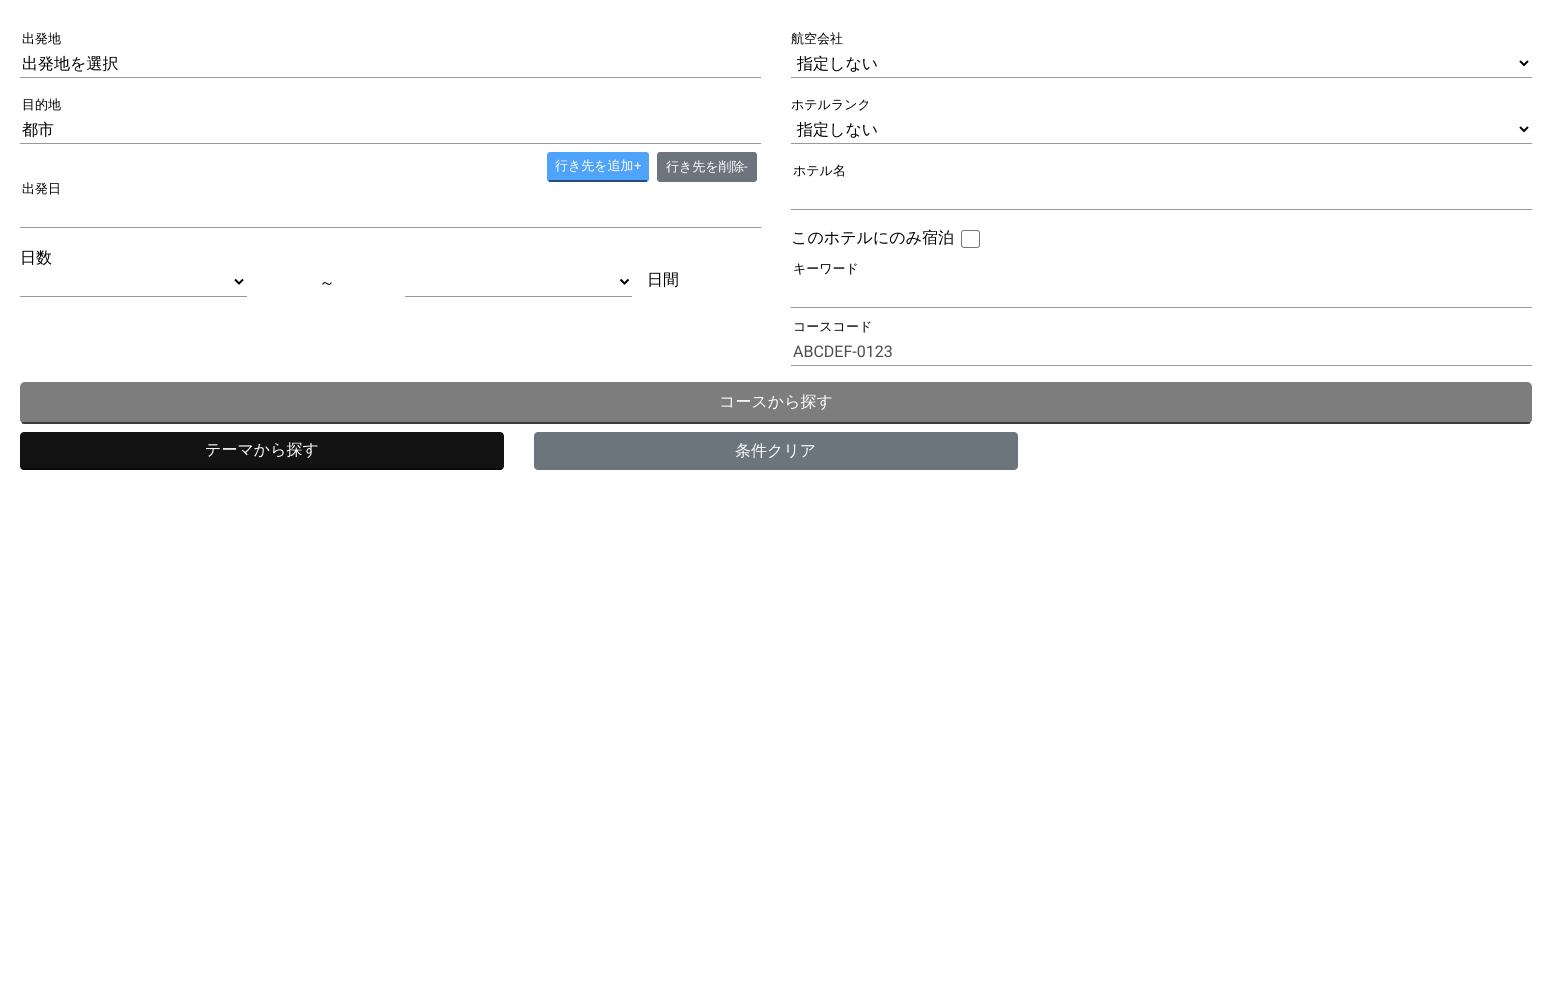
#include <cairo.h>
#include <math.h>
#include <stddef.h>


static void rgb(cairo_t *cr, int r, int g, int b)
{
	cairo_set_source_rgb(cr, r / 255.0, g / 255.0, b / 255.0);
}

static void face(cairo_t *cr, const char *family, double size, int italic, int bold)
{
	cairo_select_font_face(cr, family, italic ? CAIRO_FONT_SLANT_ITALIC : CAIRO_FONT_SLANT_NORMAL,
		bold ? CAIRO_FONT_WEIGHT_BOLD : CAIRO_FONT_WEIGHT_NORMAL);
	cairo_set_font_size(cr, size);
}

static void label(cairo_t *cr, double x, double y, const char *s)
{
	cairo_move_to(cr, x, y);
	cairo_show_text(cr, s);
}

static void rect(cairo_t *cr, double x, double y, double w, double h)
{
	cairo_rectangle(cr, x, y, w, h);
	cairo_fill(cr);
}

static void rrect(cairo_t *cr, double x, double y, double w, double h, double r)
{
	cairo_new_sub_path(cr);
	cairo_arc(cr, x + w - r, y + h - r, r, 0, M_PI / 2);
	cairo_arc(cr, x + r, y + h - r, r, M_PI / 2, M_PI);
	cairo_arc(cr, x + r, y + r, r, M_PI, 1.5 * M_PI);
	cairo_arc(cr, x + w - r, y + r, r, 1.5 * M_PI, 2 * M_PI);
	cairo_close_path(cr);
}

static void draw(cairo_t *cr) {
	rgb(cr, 255, 255, 255);
	cairo_paint(cr);
	face(cr, "WenQuanYi Zen Hei Medium", 13, 0, 0);
	rgb(cr, 0, 0, 0);
	label(cr, 22, 43, "出発地");
	face(cr, "WenQuanYi Zen Hei Medium", 16, 0, 0);
	label(cr, 22, 69, "出発地を選択");
	rgb(cr, 153, 153, 153);
	rect(cr, 20, 77, 741, 1);
	face(cr, "WenQuanYi Zen Hei Medium", 13, 0, 0);
	rgb(cr, 0, 0, 0);
	label(cr, 22, 109, "目的地");
	face(cr, "WenQuanYi Zen Hei Medium", 16, 0, 0);
	label(cr, 22, 135, "都市");
	rgb(cr, 153, 153, 153);
	rect(cr, 20, 143, 741, 1);
	rgb(cr, 79, 163, 250);
	rrect(cr, 547, 152, 102, 30, 3);
	cairo_fill(cr);
	cairo_set_source_rgba(cr, 0, 0, 0, 0.52);
	rect(cr, 549, 180, 98, 2);
	face(cr, "WenQuanYi Zen Hei Medium", 13, 0, 0);
	rgb(cr, 255, 255, 255);
	label(cr, 555, 170, "行き先を追加");
	face(cr, "Roboto", 13, 0, 0);
	label(cr, 634, 170, "+");
	rgb(cr, 108, 117, 125);
	rrect(cr, 657.5, 152.5, 99, 29, 2.5);
	cairo_fill_preserve(cr);
	cairo_set_line_width(cr, 1);
	cairo_stroke(cr);
	face(cr, "WenQuanYi Zen Hei Medium", 13, 0, 0);
	rgb(cr, 255, 255, 255);
	label(cr, 666, 171, "行き先を削除");
	face(cr, "Roboto", 13, 0, 0);
	label(cr, 744, 171, "-");
	face(cr, "WenQuanYi Zen Hei Medium", 13, 0, 0);
	rgb(cr, 0, 0, 0);
	label(cr, 22, 193, "出発日");
	rgb(cr, 153, 153, 153);
	rect(cr, 20, 227, 741, 1);
	face(cr, "WenQuanYi Zen Hei Medium", 16, 0, 0);
	rgb(cr, 0, 0, 0);
	label(cr, 20, 263, "日数");
	cairo_new_path(cr);
	cairo_move_to(cr, 235, 279.5);
	cairo_line_to(cr, 239, 283.5);
	cairo_line_to(cr, 243, 279.5);
	cairo_set_line_width(cr, 2);
	cairo_stroke(cr);
	rgb(cr, 153, 153, 153);
	rect(cr, 20, 296, 227, 1);
	rgb(cr, 0, 0, 0);
	label(cr, 319, 288, "～");
	cairo_new_path(cr);
	cairo_move_to(cr, 620.5, 279.5);
	cairo_line_to(cr, 624.5, 283.5);
	cairo_line_to(cr, 628.5, 279.5);
	cairo_stroke(cr);
	rgb(cr, 153, 153, 153);
	rect(cr, 405, 296, 227, 1);
	rgb(cr, 0, 0, 0);
	label(cr, 647, 285, "日間");
	face(cr, "WenQuanYi Zen Hei Medium", 13, 0, 0);
	label(cr, 791, 43, "航空会社");
	cairo_new_path(cr);
	cairo_move_to(cr, 1520, 61);
	cairo_line_to(cr, 1524, 65);
	cairo_line_to(cr, 1528, 61);
	cairo_stroke(cr);
	face(cr, "WenQuanYi Zen Hei Medium", 16, 0, 0);
	label(cr, 797, 69, "指定しない");
	rgb(cr, 153, 153, 153);
	rect(cr, 791, 77, 741, 1);
	face(cr, "WenQuanYi Zen Hei Medium", 13, 0, 0);
	rgb(cr, 0, 0, 0);
	label(cr, 791, 109, "ホテルランク");
	cairo_new_path(cr);
	cairo_move_to(cr, 1520, 127);
	cairo_line_to(cr, 1524, 131);
	cairo_line_to(cr, 1528, 127);
	cairo_stroke(cr);
	face(cr, "WenQuanYi Zen Hei Medium", 16, 0, 0);
	label(cr, 797, 135, "指定しない");
	rgb(cr, 153, 153, 153);
	rect(cr, 791, 143, 741, 1);
	face(cr, "WenQuanYi Zen Hei Medium", 13, 0, 0);
	rgb(cr, 0, 0, 0);
	label(cr, 793, 175, "ホテル名");
	rgb(cr, 153, 153, 153);
	rect(cr, 791, 209, 741, 1);
	face(cr, "WenQuanYi Zen Hei Medium", 16, 0, 0);
	rgb(cr, 0, 0, 0);
	label(cr, 791, 243, "このホテルにのみ宿泊");
	rrect(cr, 961.5, 230.5, 18, 17, 2.5);
	rgb(cr, 118, 118, 118);
	cairo_set_line_width(cr, 1);
	cairo_stroke(cr);
	face(cr, "WenQuanYi Zen Hei Medium", 13, 0, 0);
	rgb(cr, 0, 0, 0);
	label(cr, 793, 273, "キーワード");
	rgb(cr, 153, 153, 153);
	rect(cr, 791, 307, 741, 1);
	rgb(cr, 0, 0, 0);
	label(cr, 793, 331, "コースコード");
	face(cr, "Roboto", 16, 0, 0);
	rgb(cr, 77, 77, 77);
	label(cr, 793, 357, "ABCDEF-0123");
	rgb(cr, 153, 153, 153);
	rect(cr, 791, 365, 741, 1);
	rgb(cr, 125, 125, 125);
	rrect(cr, 20, 382, 1512, 42, 5);
	cairo_fill(cr);
	cairo_set_source_rgba(cr, 0, 0, 0, 0.52);
	rect(cr, 22, 422, 1508, 2);
	face(cr, "WenQuanYi Zen Hei Medium", 16, 0, 0);
	rgb(cr, 255, 255, 255);
	label(cr, 719, 407, "コースから探す");
	rgb(cr, 19, 19, 19);
	rrect(cr, 20, 432, 484, 38, 4);
	cairo_fill(cr);
	cairo_set_source_rgba(cr, 0, 0, 0, 0.52);
	rect(cr, 22, 468, 480, 2);
	rgb(cr, 255, 255, 255);
	label(cr, 205, 455, "テーマから探す");
	rgb(cr, 108, 117, 125);
	rrect(cr, 534.5, 432.5, 483, 37, 3.5);
	cairo_fill_preserve(cr);
	cairo_stroke(cr);
	rgb(cr, 255, 255, 255);
	label(cr, 735, 456, "条件クリア");
}

int main(void) {
	cairo_surface_t *surface = cairo_image_surface_create(CAIRO_FORMAT_RGB24, 1552, 982);
	cairo_t *cr = cairo_create(surface);
	cairo_font_options_t *options = cairo_font_options_create();
	cairo_font_options_set_hint_metrics(options, CAIRO_HINT_METRICS_OFF);
	cairo_font_options_set_hint_style(options, CAIRO_HINT_STYLE_NONE);
	cairo_set_font_options(cr, options);
	cairo_set_miter_limit(cr, 4);
	draw(cr);
	cairo_surface_write_to_png(surface, "render.png");
	cairo_font_options_destroy(options);
	cairo_destroy(cr);
	cairo_surface_destroy(surface);
	return 0;
}
